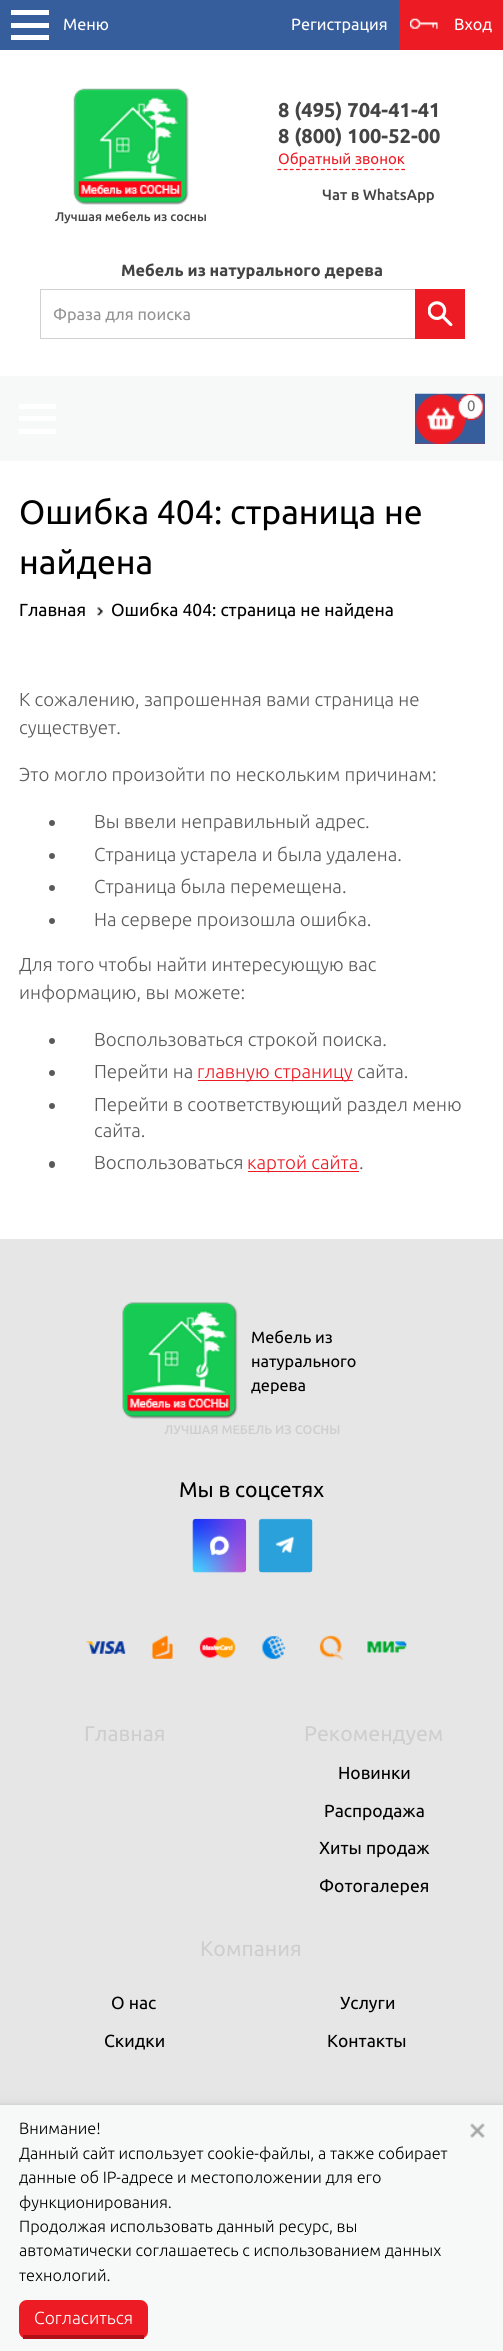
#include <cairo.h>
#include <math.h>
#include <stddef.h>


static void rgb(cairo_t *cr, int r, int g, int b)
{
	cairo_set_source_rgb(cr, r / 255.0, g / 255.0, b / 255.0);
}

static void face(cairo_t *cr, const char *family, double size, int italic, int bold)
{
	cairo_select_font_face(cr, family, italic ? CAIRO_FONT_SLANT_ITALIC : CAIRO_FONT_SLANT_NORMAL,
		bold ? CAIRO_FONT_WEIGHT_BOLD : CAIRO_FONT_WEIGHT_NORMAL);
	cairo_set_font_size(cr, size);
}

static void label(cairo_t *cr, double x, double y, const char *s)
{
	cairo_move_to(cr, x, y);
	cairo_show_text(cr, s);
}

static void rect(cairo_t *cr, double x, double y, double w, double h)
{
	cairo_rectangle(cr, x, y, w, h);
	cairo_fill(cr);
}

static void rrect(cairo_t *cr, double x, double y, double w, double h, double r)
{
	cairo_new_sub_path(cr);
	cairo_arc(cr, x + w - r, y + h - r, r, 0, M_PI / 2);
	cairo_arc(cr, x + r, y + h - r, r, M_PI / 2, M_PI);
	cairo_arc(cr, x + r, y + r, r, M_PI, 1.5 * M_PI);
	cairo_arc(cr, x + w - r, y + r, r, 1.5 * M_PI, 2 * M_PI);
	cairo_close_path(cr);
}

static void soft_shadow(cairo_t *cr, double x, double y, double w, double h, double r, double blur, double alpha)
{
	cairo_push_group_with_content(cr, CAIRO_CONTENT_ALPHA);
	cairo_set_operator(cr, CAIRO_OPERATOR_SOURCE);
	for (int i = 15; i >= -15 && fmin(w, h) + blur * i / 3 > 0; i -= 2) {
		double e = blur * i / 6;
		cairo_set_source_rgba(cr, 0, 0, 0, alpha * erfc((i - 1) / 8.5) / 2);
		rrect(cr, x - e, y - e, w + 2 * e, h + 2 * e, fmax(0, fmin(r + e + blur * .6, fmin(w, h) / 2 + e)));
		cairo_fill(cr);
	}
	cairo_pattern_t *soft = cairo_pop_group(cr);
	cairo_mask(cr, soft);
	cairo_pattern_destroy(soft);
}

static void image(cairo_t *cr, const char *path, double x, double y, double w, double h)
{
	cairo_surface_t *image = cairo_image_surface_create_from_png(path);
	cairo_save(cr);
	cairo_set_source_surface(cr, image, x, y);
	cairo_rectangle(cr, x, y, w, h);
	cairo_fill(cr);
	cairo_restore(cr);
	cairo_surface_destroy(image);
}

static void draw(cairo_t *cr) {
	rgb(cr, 255, 255, 255);
	cairo_paint(cr);
	rgb(cr, 54, 94, 156);
	rect(cr, 0, 0, 399, 50);
	rgb(cr, 255, 255, 255);
	rect(cr, 11, 23, 38, 5);
	rect(cr, 11, 10, 38, 5);
	rect(cr, 11, 35, 38, 5);
	face(cr, "Ubuntu", 16.25, 0, 0);
	label(cr, 63, 30, "Меню");
	label(cr, 291, 30, "Регистрация");
	rgb(cr, 237, 28, 36);
	rect(cr, 399, 0, 104, 50);
	image(cr, "image0.png", 410, 18, 28, 11);
	rgb(cr, 255, 255, 255);
	label(cr, 454, 30, "Вход");
	face(cr, "Ubuntu", 20, 0, 1);
	rgb(cr, 68, 68, 68);
	label(cr, 278, 117, "8 (495) 704-41-41");
	label(cr, 278, 143, "8 (800) 100-52-00");
	cairo_new_path(cr);
	cairo_move_to(cr, 277.5, 169.5);
	cairo_line_to(cr, 405, 169.5);
	rgb(cr, 237, 28, 36);
	cairo_set_line_width(cr, 1.2);
	cairo_set_dash(cr, (double[]){3.75, 2.44}, 2, 0);
	cairo_stroke(cr);
	face(cr, "Ubuntu", 15, 0, 0);
	label(cr, 278, 164, "Обратный звонок");
	face(cr, "Ubuntu Medium", 15, 0, 0);
	rgb(cr, 68, 68, 68);
	label(cr, 322, 200, "Чат в WhatsApp");
	image(cr, "image1.png", 73, 88, 116, 117);
	face(cr, "Ubuntu Medium", 12.5, 0, 0);
	label(cr, 55, 221, "Лучшая мебель из сосны");
	face(cr, "Ubuntu", 16.25, 0, 1);
	label(cr, 121, 276, "Мебель из натурального дерева");
	cairo_rectangle(cr, 40.5, 289.5, 424, 49);
	rgb(cr, 209, 209, 209);
	cairo_set_line_width(cr, 1);
	cairo_set_dash(cr, NULL, 0, 0);
	cairo_stroke(cr);
	face(cr, "Ubuntu", 16.25, 0, 0);
	rgb(cr, 146, 146, 147);
	label(cr, 53, 320, "Фраза для поиска");
	rgb(cr, 237, 28, 36);
	rect(cr, 415, 289, 50, 50);
	image(cr, "image2.png", 428, 301, 25, 25);
	rgb(cr, 247, 248, 248);
	rect(cr, 0, 376, 503, 85);
	rgb(cr, 255, 255, 255);
	rect(cr, 19, 416, 37, 5);
	rect(cr, 19, 404, 37, 5);
	rect(cr, 19, 429, 37, 5);
	rgb(cr, 237, 28, 36);
	rect(cr, 415, 394, 70, 50);
	image(cr, "image3.png", 415, 393, 70, 51);
	face(cr, "Ubuntu", 15, 0, 0);
	rgb(cr, 110, 110, 109);
	label(cr, 467, 411, "0");
	face(cr, "Ubuntu", 33.75, 0, 0);
	rgb(cr, 0, 0, 0);
	label(cr, 19, 524, "Ошибка 404: страница не");
	label(cr, 19, 574, "найдена");
	face(cr, "Ubuntu", 17.5, 0, 0);
	label(cr, 19, 616, "Главная");
	image(cr, "image4.png", 97, 607, 6, 10);
	label(cr, 111, 616, "Ошибка 404: страница не найдена");
	face(cr, "Ubuntu Light", 18.75, 0, 0);
	rgb(cr, 90, 90, 90);
	label(cr, 19, 706, "К сожалению, запрошенная вами страница не");
	label(cr, 19, 734, "существует.");
	label(cr, 19, 781, "Это могло произойти по нескольким причинам:");
	cairo_new_path(cr);
	cairo_arc(cr, 52, 823, 3, 0, 2 * M_PI);
	cairo_fill(cr);
	label(cr, 94, 828, "Вы ввели неправильный адрес.");
	cairo_new_path(cr);
	cairo_arc(cr, 52, 856, 3, 0, 2 * M_PI);
	cairo_fill(cr);
	label(cr, 94, 861, "Страница устарела и была удалена.");
	cairo_new_path(cr);
	cairo_arc(cr, 52, 888, 3, 0, 2 * M_PI);
	cairo_fill(cr);
	label(cr, 94, 893, "Страница была перемещена.");
	cairo_new_path(cr);
	cairo_arc(cr, 52, 921, 3, 0, 2 * M_PI);
	cairo_fill(cr);
	label(cr, 94, 926, "На сервере произошла ошибка.");
	label(cr, 19, 971, "Для того чтобы найти интересующую вас");
	label(cr, 19, 999, "информацию, вы можете:");
	cairo_new_path(cr);
	cairo_arc(cr, 52, 1041, 3, 0, 2 * M_PI);
	cairo_fill(cr);
	label(cr, 94, 1046, "Воспользоваться строкой поиска.");
	cairo_new_path(cr);
	cairo_arc(cr, 52, 1073, 3, 0, 2 * M_PI);
	cairo_fill(cr);
	label(cr, 94, 1078, "Перейти на");
	rgb(cr, 237, 28, 36);
	rect(cr, 198, 1080, 155, 1);
	label(cr, 197, 1078, "главную страницу");
	rgb(cr, 90, 90, 90);
	label(cr, 357, 1078, "сайта.");
	cairo_new_path(cr);
	cairo_arc(cr, 52, 1106, 3, 0, 2 * M_PI);
	cairo_fill(cr);
	label(cr, 94, 1111, "Перейти в соответствующий раздел меню");
	label(cr, 94, 1137, "сайта.");
	rrect(cr, 49, 1161, 6, 7, 3);
	cairo_fill(cr);
	label(cr, 94, 1169, "Воспользоваться");
	rgb(cr, 237, 28, 36);
	rect(cr, 248, 1171, 111, 1);
	label(cr, 247, 1169, "картой сайта");
	rgb(cr, 90, 90, 90);
	label(cr, 359, 1169, ".");
	rgb(cr, 230, 230, 230);
	rect(cr, 0, 1239, 503, 866);
	image(cr, "image5.png", 122, 1302, 116, 117);
	face(cr, "Ubuntu", 16.25, 0, 0);
	rgb(cr, 0, 0, 0);
	label(cr, 251, 1343, "Мебель из");
	label(cr, 251, 1367, "натурального");
	label(cr, 251, 1391, "дерева");
	face(cr, "Ubuntu Medium", 12.5, 0, 0);
	rgb(cr, 206, 206, 206);
	label(cr, 164, 1434, "ЛУЧШАЯ МЕБЕЛЬ ИЗ СОСНЫ");
	face(cr, "Ubuntu", 21.25, 0, 0);
	rgb(cr, 0, 0, 0);
	label(cr, 179, 1497, "Мы в соцсетях");
	image(cr, "image6.png", 192, 1518, 55, 55);
	image(cr, "image7.png", 258, 1518, 55, 55);
	image(cr, "image8.png", 86, 1640, 40, 15);
	image(cr, "image9.png", 151, 1635, 22, 24);
	image(cr, "image10.png", 199, 1637, 37, 22);
	image(cr, "image11.png", 262, 1636, 24, 24);
	image(cr, "image12.png", 319, 1635, 24, 25);
	image(cr, "image13.png", 367, 1641, 40, 12);
	rgb(cr, 206, 206, 206);
	label(cr, 84, 1741, "Главная");
	label(cr, 304, 1741, "Рекомендуем");
	face(cr, "Ubuntu", 17.5, 0, 0);
	rgb(cr, 0, 0, 0);
	label(cr, 338, 1779, "Новинки");
	label(cr, 324, 1817, "Распродажа");
	label(cr, 319, 1854, "Хиты продаж");
	label(cr, 319, 1892, "Фотогалерея");
	face(cr, "Ubuntu", 21.25, 0, 0);
	rgb(cr, 206, 206, 206);
	label(cr, 200, 1956, "Компания");
	face(cr, "Ubuntu", 17.5, 0, 0);
	rgb(cr, 0, 0, 0);
	label(cr, 111, 2009, "О нас");
	label(cr, 340, 2009, "Услуги");
	label(cr, 104, 2047, "Скидки");
	label(cr, 327, 2047, "Контакты");
	rgb(cr, 175, 175, 175);
	soft_shadow(cr, 0, 2108, 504, 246, 0, 7.5, 0.4);
	soft_shadow(cr, 0, 2105, 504, 246, 0, 2.5, 0.4);
	rgb(cr, 247, 248, 248);
	rect(cr, 0, 2105, 503, 246);
	face(cr, "Ubuntu Light", 16.25, 0, 0);
	rgb(cr, 0, 0, 0);
	label(cr, 19, 2134, "Внимание!");
	label(cr, 19, 2159, "Данный сайт использует cookie-файлы, а также собирает");
	label(cr, 19, 2183, "данные об IP-адресе и местоположении для его");
	label(cr, 19, 2208, "функционирования.");
	label(cr, 19, 2232, "Продолжая использовать данный ресурс, вы");
	label(cr, 19, 2256, "автоматически соглашаетесь с использованием данных");
	label(cr, 19, 2281, "технологий.");
	image(cr, "image14.png", 470, 2123, 15, 15);
	rgb(cr, 237, 28, 36);
	rrect(cr, 19, 2300, 129, 39, 8);
	cairo_fill(cr);
	rgb(cr, 177, 17, 22);
	rect(cr, 23, 2335, 121, 4);
	face(cr, "Ubuntu Light", 17.5, 0, 0);
	rgb(cr, 255, 255, 255);
	label(cr, 34, 2324, "Согласиться");
}

int main(void) {
	cairo_surface_t *surface = cairo_image_surface_create(CAIRO_FORMAT_RGB24, 503, 2351);
	cairo_t *cr = cairo_create(surface);
	cairo_font_options_t *options = cairo_font_options_create();
	cairo_font_options_set_hint_metrics(options, CAIRO_HINT_METRICS_OFF);
	cairo_font_options_set_hint_style(options, CAIRO_HINT_STYLE_NONE);
	cairo_set_font_options(cr, options);
	cairo_set_miter_limit(cr, 4);
	draw(cr);
	cairo_surface_write_to_png(surface, "render.png");
	cairo_font_options_destroy(options);
	cairo_destroy(cr);
	cairo_surface_destroy(surface);
	return 0;
}
